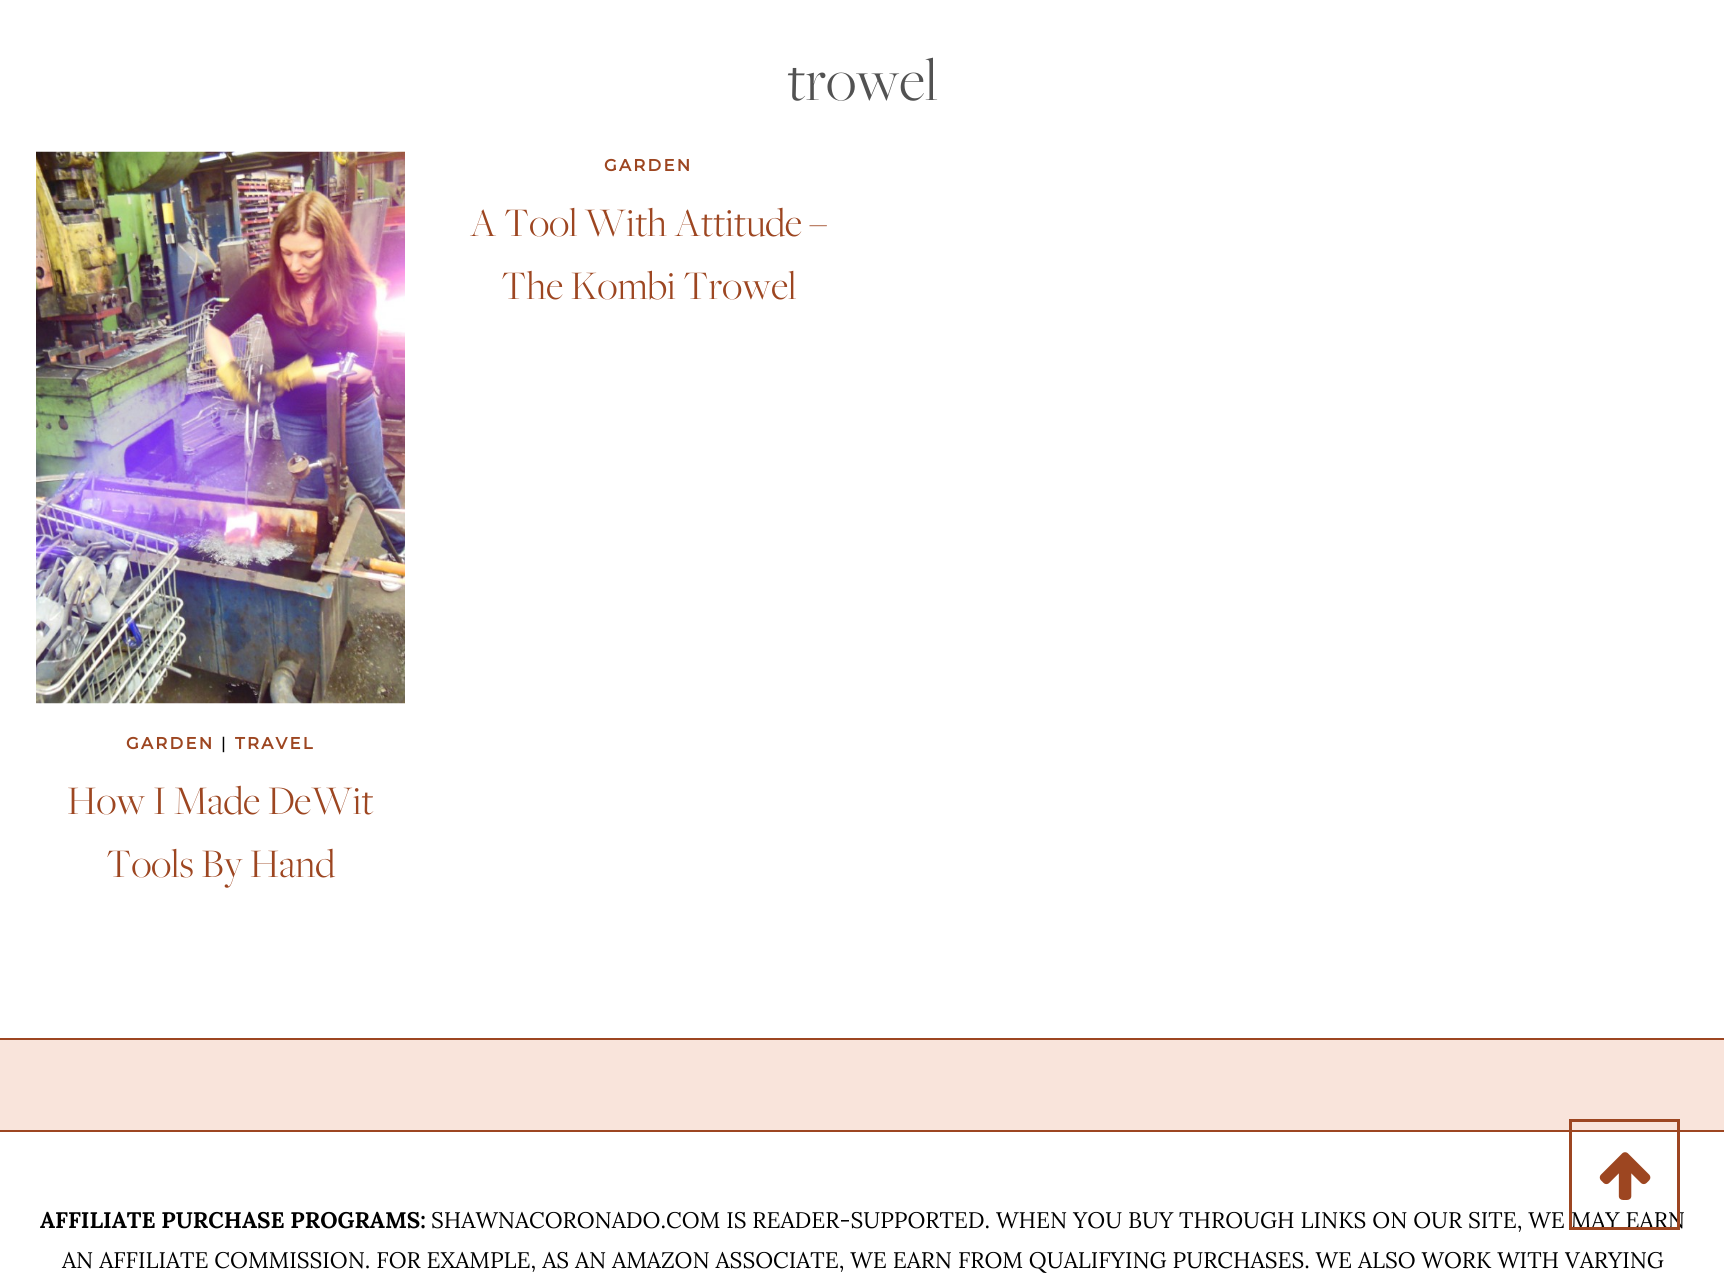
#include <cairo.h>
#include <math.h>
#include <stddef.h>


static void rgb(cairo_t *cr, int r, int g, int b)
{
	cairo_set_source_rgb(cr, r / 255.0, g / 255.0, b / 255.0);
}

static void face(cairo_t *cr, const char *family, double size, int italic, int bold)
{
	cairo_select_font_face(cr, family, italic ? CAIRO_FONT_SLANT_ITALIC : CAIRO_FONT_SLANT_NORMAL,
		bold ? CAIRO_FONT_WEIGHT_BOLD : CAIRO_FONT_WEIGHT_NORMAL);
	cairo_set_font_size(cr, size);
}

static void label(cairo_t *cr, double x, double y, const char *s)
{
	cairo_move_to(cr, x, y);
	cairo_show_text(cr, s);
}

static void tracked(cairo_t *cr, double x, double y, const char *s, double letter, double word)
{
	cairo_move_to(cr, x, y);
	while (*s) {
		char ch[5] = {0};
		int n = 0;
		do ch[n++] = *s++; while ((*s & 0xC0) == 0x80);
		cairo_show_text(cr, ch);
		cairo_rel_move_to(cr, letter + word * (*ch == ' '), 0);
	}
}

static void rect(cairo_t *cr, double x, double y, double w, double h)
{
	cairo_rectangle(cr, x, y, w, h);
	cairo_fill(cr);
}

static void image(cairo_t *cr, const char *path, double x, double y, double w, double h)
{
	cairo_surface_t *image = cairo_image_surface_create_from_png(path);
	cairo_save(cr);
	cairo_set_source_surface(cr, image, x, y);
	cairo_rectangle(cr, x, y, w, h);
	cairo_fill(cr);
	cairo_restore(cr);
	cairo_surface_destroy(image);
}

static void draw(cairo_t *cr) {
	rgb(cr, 255, 255, 255);
	cairo_paint(cr);
	face(cr, "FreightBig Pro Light", 63, 0, 0);
	rgb(cr, 82, 82, 82);
	label(cr, 787, 100, "trowel");
	face(cr, "Montserrat", 16.5, 0, 1);
	rgb(cr, 157, 70, 33);
	tracked(cr, 604, 171, "GARDEN", 2.25, 0);
	face(cr, "FreightBig Pro Light", 42, 0, 0);
	label(cr, 470, 236, "A Tool With Attitude –");
	label(cr, 501, 299, "The Kombi Trowel");
	image(cr, "image0.png", 36, 151, 369, 553);
	face(cr, "Montserrat", 16.5, 0, 1);
	tracked(cr, 126, 749, "GARDEN", 2.25, 0);
	face(cr, "Montserrat Thin", 16.5, 0, 0);
	rgb(cr, 0, 0, 0);
	tracked(cr, 221, 749, "|", 2.25, 0);
	face(cr, "Montserrat", 16.5, 0, 1);
	rgb(cr, 157, 70, 33);
	tracked(cr, 235, 749, "TRAVEL", 2.25, 0);
	face(cr, "FreightBig Pro Light", 42, 0, 0);
	label(cr, 67, 814, "How I Made DeWit");
	label(cr, 106, 877, "Tools By Hand");
	rgb(cr, 249, 228, 219);
	rect(cr, 0, 1040, 1724, 90);
	rgb(cr, 157, 70, 33);
	rect(cr, 0, 1038, 1724, 2);
	rect(cr, 0, 1130, 1724, 2);
	face(cr, "Lora", 22.5, 0, 1);
	rgb(cr, 0, 0, 0);
	label(cr, 40, 1228, "AFFILIATE PURCHASE PROGRAMS:");
	face(cr, "Lora", 22.5, 0, 0);
	label(cr, 431, 1228, "SHAWNACORONADO.COM IS READER-SUPPORTED. WHEN YOU BUY THROUGH LINKS ON OUR SITE, WE MAY EARN");
	label(cr, 62, 1268, "AN AFFILIATE COMMISSION. FOR EXAMPLE, AS AN AMAZON ASSOCIATE, WE EARN FROM QUALIFYING PURCHASES. WE ALSO WORK WITH VARYING");
	cairo_rectangle(cr, 1570.5, 1120.5, 108, 108);
	rgb(cr, 157, 70, 33);
	cairo_set_line_width(cr, 3);
	cairo_stroke(cr);
	image(cr, "image1.png", 1599, 1152, 52, 48);
}

int main(void) {
	cairo_surface_t *surface = cairo_image_surface_create(CAIRO_FORMAT_RGB24, 1724, 1275);
	cairo_t *cr = cairo_create(surface);
	cairo_font_options_t *options = cairo_font_options_create();
	cairo_font_options_set_hint_metrics(options, CAIRO_HINT_METRICS_OFF);
	cairo_font_options_set_hint_style(options, CAIRO_HINT_STYLE_NONE);
	cairo_set_font_options(cr, options);
	cairo_set_miter_limit(cr, 4);
	draw(cr);
	cairo_surface_write_to_png(surface, "render.png");
	cairo_font_options_destroy(options);
	cairo_destroy(cr);
	cairo_surface_destroy(surface);
	return 0;
}
